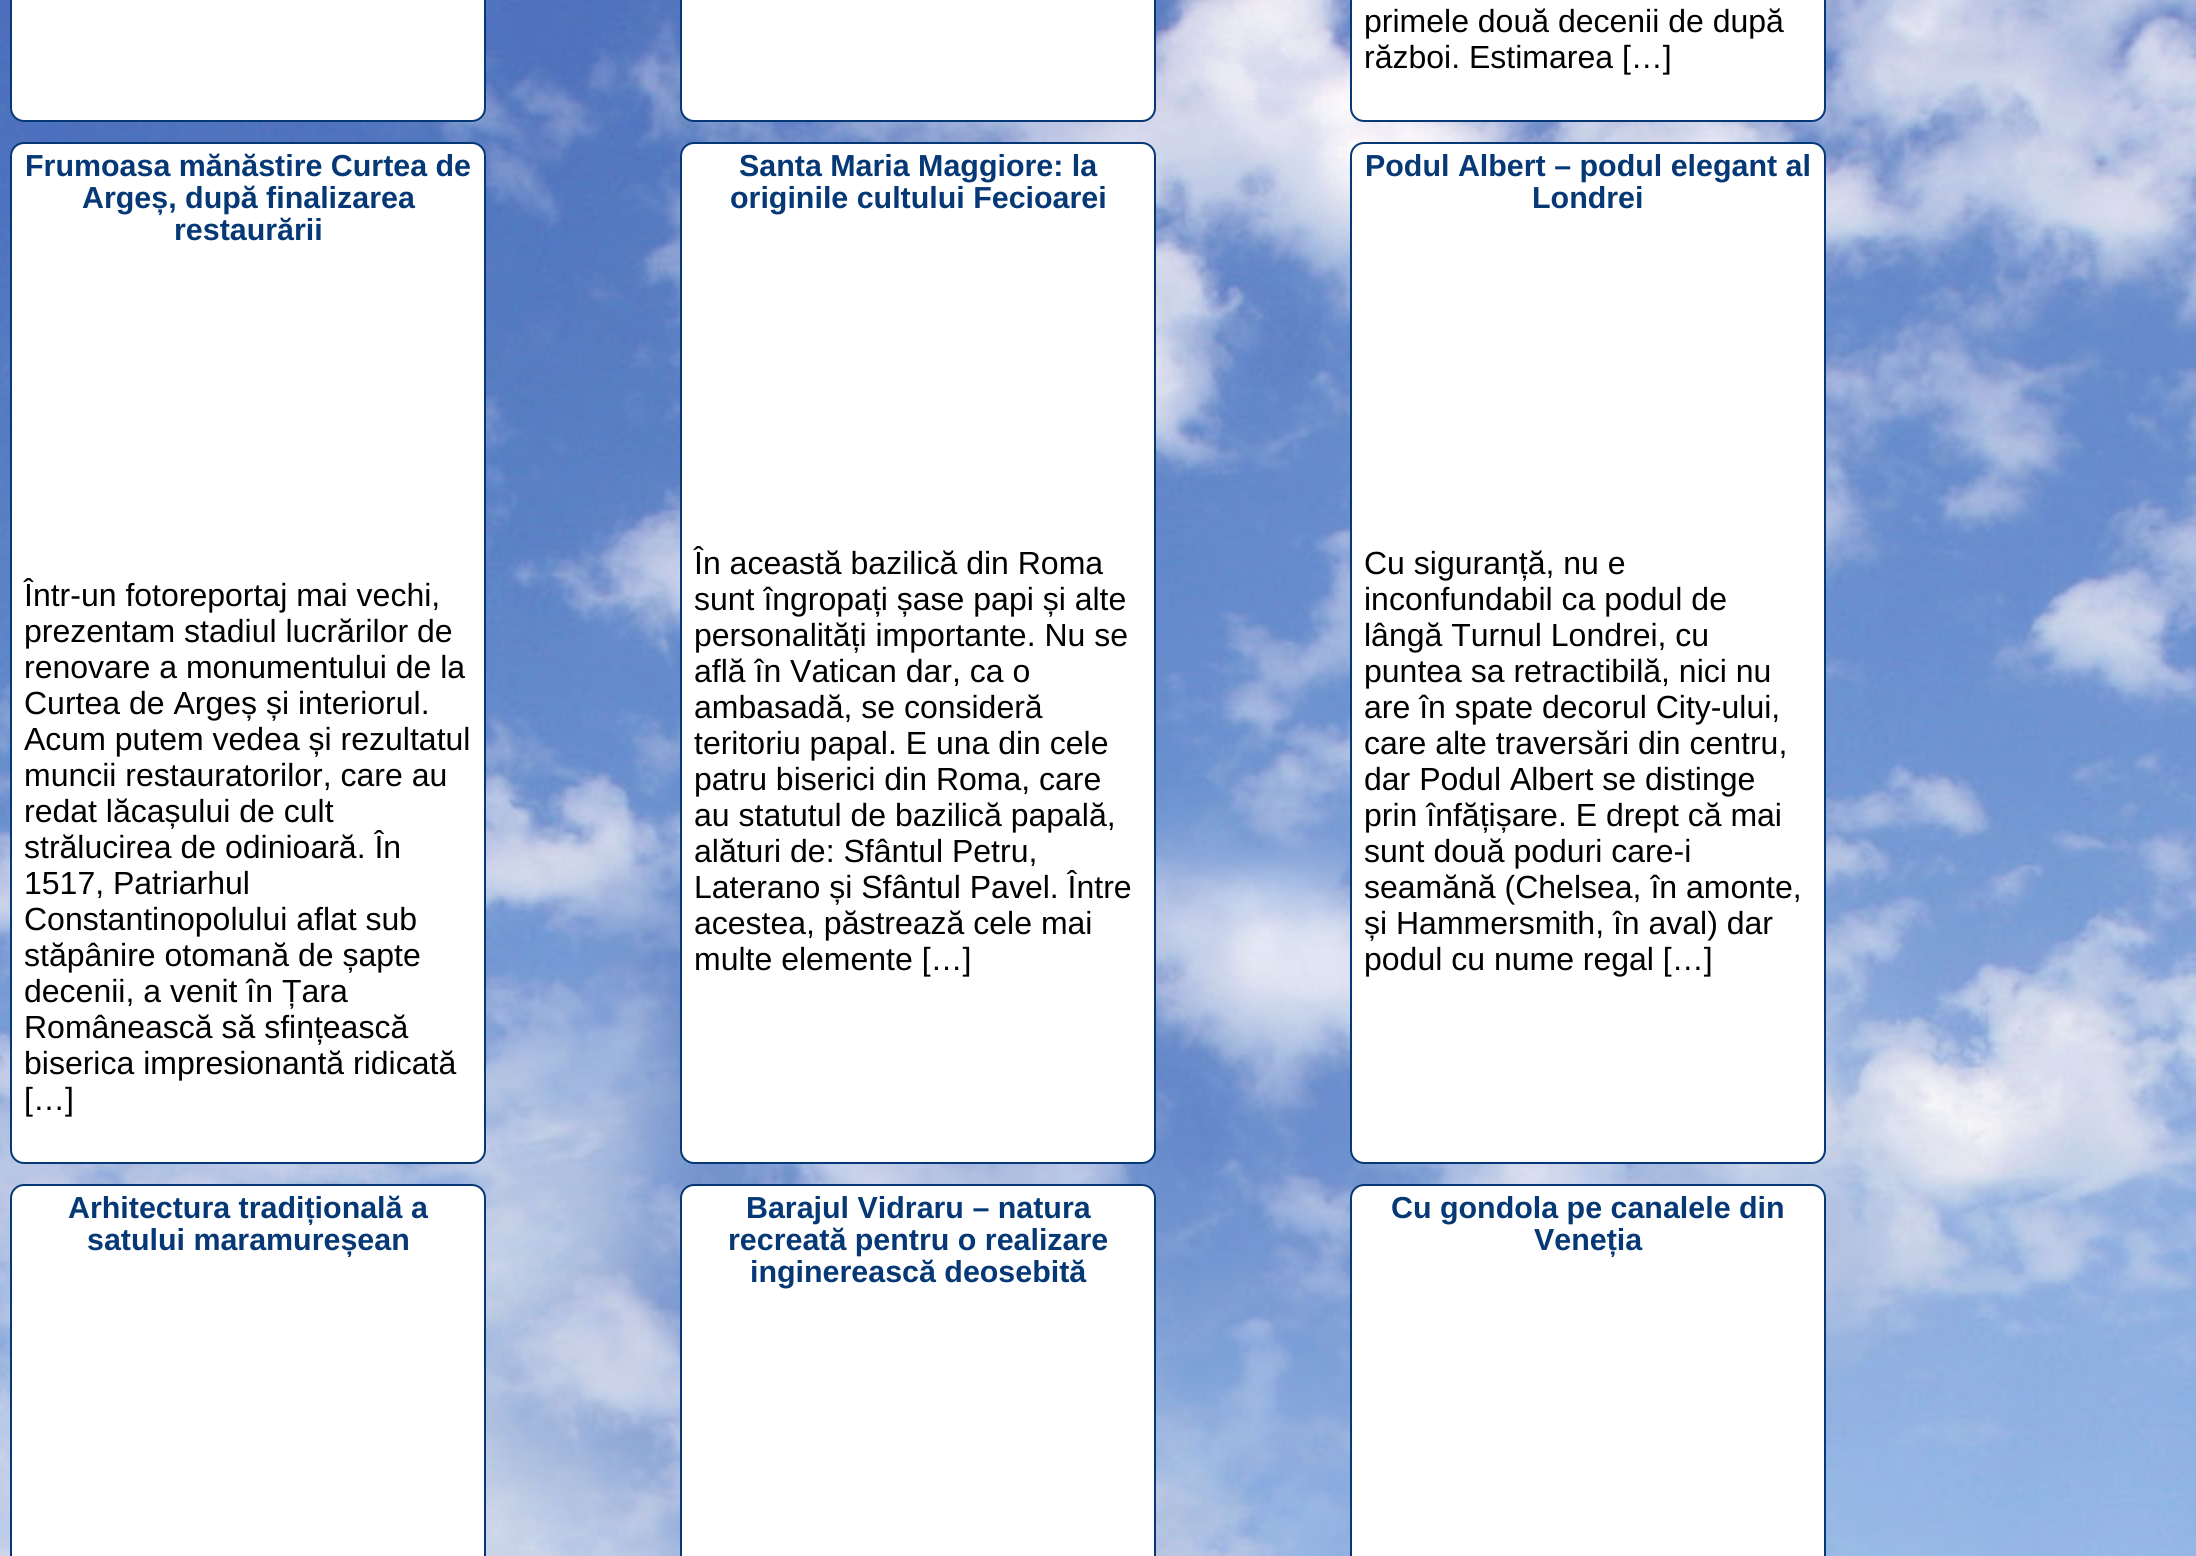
#include <cairo.h>
#include <math.h>
#include <stddef.h>


static void rgb(cairo_t *cr, int r, int g, int b)
{
	cairo_set_source_rgb(cr, r / 255.0, g / 255.0, b / 255.0);
}

static void face(cairo_t *cr, const char *family, double size, int italic, int bold)
{
	cairo_select_font_face(cr, family, italic ? CAIRO_FONT_SLANT_ITALIC : CAIRO_FONT_SLANT_NORMAL,
		bold ? CAIRO_FONT_WEIGHT_BOLD : CAIRO_FONT_WEIGHT_NORMAL);
	cairo_set_font_size(cr, size);
}

static void label(cairo_t *cr, double x, double y, const char *s)
{
	cairo_move_to(cr, x, y);
	cairo_show_text(cr, s);
}

static void rrect(cairo_t *cr, double x, double y, double w, double h, double r)
{
	cairo_new_sub_path(cr);
	cairo_arc(cr, x + w - r, y + h - r, r, 0, M_PI / 2);
	cairo_arc(cr, x + r, y + h - r, r, M_PI / 2, M_PI);
	cairo_arc(cr, x + r, y + r, r, M_PI, 1.5 * M_PI);
	cairo_arc(cr, x + w - r, y + r, r, 1.5 * M_PI, 2 * M_PI);
	cairo_close_path(cr);
}

static void image(cairo_t *cr, const char *path, double x, double y, double w, double h)
{
	cairo_surface_t *image = cairo_image_surface_create_from_png(path);
	cairo_save(cr);
	cairo_set_source_surface(cr, image, x, y);
	cairo_rectangle(cr, x, y, w, h);
	cairo_fill(cr);
	cairo_restore(cr);
	cairo_surface_destroy(image);
}

static void draw(cairo_t *cr) {
	rgb(cr, 255, 255, 255);
	cairo_paint(cr);
	image(cr, "image0.png", 0, 0, 2196, 1556);
	rgb(cr, 255, 255, 255);
	rrect(cr, 11, -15, 474, 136, 13);
	cairo_fill_preserve(cr);
	rgb(cr, 5, 56, 117);
	cairo_stroke(cr);
	rgb(cr, 255, 255, 255);
	rrect(cr, 681, -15, 474, 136, 13);
	cairo_fill_preserve(cr);
	rgb(cr, 5, 56, 117);
	cairo_stroke(cr);
	rgb(cr, 255, 255, 255);
	rrect(cr, 1351, -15, 474, 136, 13);
	cairo_fill_preserve(cr);
	rgb(cr, 5, 56, 117);
	cairo_stroke(cr);
	face(cr, "Liberation Sans", 32, 0, 0);
	rgb(cr, 0, 0, 0);
	label(cr, 1364, 32, "primele două decenii de după");
	label(cr, 1364, 68, "război. Estimarea […]");
	rgb(cr, 255, 255, 255);
	rrect(cr, 11, 143, 474, 1020, 13);
	cairo_fill_preserve(cr);
	rgb(cr, 5, 56, 117);
	cairo_stroke(cr);
	face(cr, "Liberation Sans", 30.4, 0, 1);
	label(cr, 25, 176, "Frumoasa mănăstire Curtea de");
	label(cr, 82, 208, "Argeș, după finalizarea");
	label(cr, 174, 240, "restaurării");
	face(cr, "Liberation Sans", 32, 0, 0);
	rgb(cr, 0, 0, 0);
	label(cr, 24, 606, "Într-un fotoreportaj mai vechi,");
	label(cr, 24, 642, "prezentam stadiul lucrărilor de");
	label(cr, 24, 678, "renovare a monumentului de la");
	label(cr, 24, 714, "Curtea de Argeș și interiorul.");
	label(cr, 24, 750, "Acum putem vedea și rezultatul");
	label(cr, 24, 786, "muncii restauratorilor, care au");
	label(cr, 24, 822, "redat lăcașului de cult");
	label(cr, 24, 858, "strălucirea de odinioară. În");
	label(cr, 24, 894, "1517, Patriarhul");
	label(cr, 24, 930, "Constantinopolului aflat sub");
	label(cr, 24, 966, "stăpânire otomană de șapte");
	label(cr, 24, 1002, "decenii, a venit în Țara");
	label(cr, 24, 1038, "Românească să sfințească");
	label(cr, 24, 1074, "biserica impresionantă ridicată");
	label(cr, 24, 1110, "[…]");
	rgb(cr, 255, 255, 255);
	rrect(cr, 681, 143, 474, 1020, 13);
	cairo_fill_preserve(cr);
	rgb(cr, 5, 56, 117);
	cairo_stroke(cr);
	face(cr, "Liberation Sans", 30.4, 0, 1);
	label(cr, 739, 176, "Santa Maria Maggiore: la");
	label(cr, 730, 208, "originile cultului Fecioarei");
	face(cr, "Liberation Sans", 32, 0, 0);
	rgb(cr, 0, 0, 0);
	label(cr, 694, 574, "În această bazilică din Roma");
	label(cr, 694, 610, "sunt îngropați șase papi și alte");
	label(cr, 694, 646, "personalități importante. Nu se");
	label(cr, 694, 682, "află în Vatican dar, ca o");
	label(cr, 694, 718, "ambasadă, se consideră");
	label(cr, 694, 754, "teritoriu papal. E una din cele");
	label(cr, 694, 790, "patru biserici din Roma, care");
	label(cr, 694, 826, "au statutul de bazilică papală,");
	label(cr, 694, 862, "alături de: Sfântul Petru,");
	label(cr, 694, 898, "Laterano și Sfântul Pavel. Între");
	label(cr, 694, 934, "acestea, păstrează cele mai");
	label(cr, 694, 970, "multe elemente […]");
	rgb(cr, 255, 255, 255);
	rrect(cr, 1351, 143, 474, 1020, 13);
	cairo_fill_preserve(cr);
	rgb(cr, 5, 56, 117);
	cairo_stroke(cr);
	face(cr, "Liberation Sans", 30.4, 0, 1);
	label(cr, 1365, 176, "Podul Albert – podul elegant al");
	label(cr, 1532, 208, "Londrei");
	face(cr, "Liberation Sans", 32, 0, 0);
	rgb(cr, 0, 0, 0);
	label(cr, 1364, 574, "Cu siguranță, nu e");
	label(cr, 1364, 610, "inconfundabil ca podul de");
	label(cr, 1364, 646, "lângă Turnul Londrei, cu");
	label(cr, 1364, 682, "puntea sa retractibilă, nici nu");
	label(cr, 1364, 718, "are în spate decorul City-ului,");
	label(cr, 1364, 754, "care alte traversări din centru,");
	label(cr, 1364, 790, "dar Podul Albert se distinge");
	label(cr, 1364, 826, "prin înfățișare. E drept că mai");
	label(cr, 1364, 862, "sunt două poduri care-i");
	label(cr, 1364, 898, "seamănă (Chelsea, în amonte,");
	label(cr, 1364, 934, "și Hammersmith, în aval) dar");
	label(cr, 1364, 970, "podul cu nume regal […]");
	rgb(cr, 255, 255, 255);
	rrect(cr, 11, 1185, 474, 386, 13);
	cairo_fill_preserve(cr);
	rgb(cr, 5, 56, 117);
	cairo_stroke(cr);
	face(cr, "Liberation Sans", 30.4, 0, 1);
	label(cr, 68, 1218, "Arhitectura tradițională a");
	label(cr, 87, 1250, "satului maramureșean");
	rgb(cr, 255, 255, 255);
	rrect(cr, 681, 1185, 474, 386, 13);
	cairo_fill_preserve(cr);
	rgb(cr, 5, 56, 117);
	cairo_stroke(cr);
	label(cr, 746, 1218, "Barajul Vidraru – natura");
	label(cr, 728, 1250, "recreată pentru o realizare");
	label(cr, 750, 1282, "inginerească deosebită");
	rgb(cr, 255, 255, 255);
	rrect(cr, 1351, 1185, 474, 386, 13);
	cairo_fill_preserve(cr);
	rgb(cr, 5, 56, 117);
	cairo_stroke(cr);
	label(cr, 1391, 1218, "Cu gondola pe canalele din");
	label(cr, 1534, 1250, "Veneția");
}

int main(void) {
	cairo_surface_t *surface = cairo_image_surface_create(CAIRO_FORMAT_RGB24, 2196, 1556);
	cairo_t *cr = cairo_create(surface);
	cairo_font_options_t *options = cairo_font_options_create();
	cairo_font_options_set_hint_metrics(options, CAIRO_HINT_METRICS_OFF);
	cairo_font_options_set_hint_style(options, CAIRO_HINT_STYLE_NONE);
	cairo_set_font_options(cr, options);
	cairo_set_miter_limit(cr, 4);
	draw(cr);
	cairo_surface_write_to_png(surface, "render.png");
	cairo_font_options_destroy(options);
	cairo_destroy(cr);
	cairo_surface_destroy(surface);
	return 0;
}
